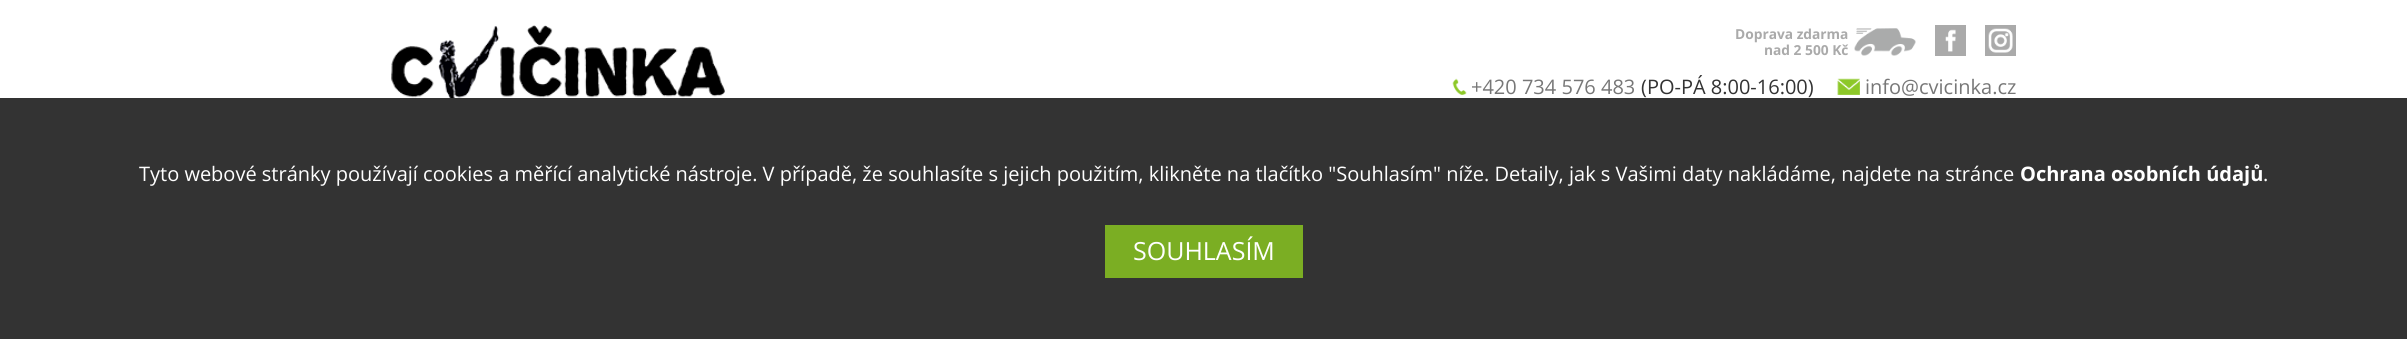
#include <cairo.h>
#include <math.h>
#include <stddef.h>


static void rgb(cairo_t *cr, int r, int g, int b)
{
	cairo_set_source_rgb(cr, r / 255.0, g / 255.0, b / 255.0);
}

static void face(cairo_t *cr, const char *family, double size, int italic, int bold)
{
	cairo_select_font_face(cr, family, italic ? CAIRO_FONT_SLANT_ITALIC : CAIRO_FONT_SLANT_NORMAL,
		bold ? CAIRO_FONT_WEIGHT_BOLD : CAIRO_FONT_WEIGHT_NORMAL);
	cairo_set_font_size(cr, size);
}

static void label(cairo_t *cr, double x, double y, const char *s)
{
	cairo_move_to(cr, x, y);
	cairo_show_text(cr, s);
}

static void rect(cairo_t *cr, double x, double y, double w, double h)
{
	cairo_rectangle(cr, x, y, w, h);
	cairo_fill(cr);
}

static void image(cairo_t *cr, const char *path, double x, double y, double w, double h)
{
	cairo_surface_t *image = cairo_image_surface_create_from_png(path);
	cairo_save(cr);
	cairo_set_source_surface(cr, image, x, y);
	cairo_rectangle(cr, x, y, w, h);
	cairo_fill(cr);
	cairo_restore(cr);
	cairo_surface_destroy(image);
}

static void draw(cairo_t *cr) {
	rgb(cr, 255, 255, 255);
	cairo_paint(cr);
	image(cr, "image0.png", 391, 25, 334, 73);
	image(cr, "image1.png", 1854, 28, 62, 28);
	face(cr, "Open Sans", 13.75, 0, 1);
	rgb(cr, 170, 170, 170);
	label(cr, 1735, 39, "Doprava zdarma");
	label(cr, 1764, 55, "nad 2 500 Kč");
	rect(cr, 1935, 25, 31, 31);
	image(cr, "image2.png", 1945, 29, 11, 23);
	rect(cr, 1985, 25, 31, 31);
	image(cr, "image3.png", 1988, 28, 25, 25);
	image(cr, "image4.png", 1452, 78, 15, 17);
	face(cr, "Open Sans", 20, 0, 0);
	rgb(cr, 119, 119, 119);
	label(cr, 1471, 94, "+420 734 576 483");
	rgb(cr, 51, 51, 51);
	label(cr, 1641, 94, "(PO-PÁ 8:00-16:00)");
	image(cr, "image5.png", 1837, 78, 23, 17);
	rgb(cr, 119, 119, 119);
	label(cr, 1865, 94, "info@cvicinka.cz");
	rgb(cr, 51, 51, 51);
	rect(cr, 0, 98, 2407, 241);
	rgb(cr, 255, 255, 255);
	label(cr, 139, 181, "Tyto webové stránky používají cookies a měřící analytické nástroje. V případě, že souhlasíte s jejich použitím, klikněte na tlačítko \"Souhlasím\" níže. Detaily, jak s Vašimi daty nakládáme, najdete na stránce");
	face(cr, "Open Sans", 20, 0, 1);
	label(cr, 2020, 181, "Ochrana osobních údajů");
	face(cr, "Open Sans", 20, 0, 0);
	label(cr, 2263, 181, ".");
	rgb(cr, 123, 174, 35);
	rect(cr, 1105, 225, 198, 53);
	face(cr, "Open Sans", 25, 0, 0);
	rgb(cr, 255, 255, 255);
	label(cr, 1133, 260, "SOUHLASÍM");
}

int main(void) {
	cairo_surface_t *surface = cairo_image_surface_create(CAIRO_FORMAT_RGB24, 2407, 339);
	cairo_t *cr = cairo_create(surface);
	cairo_font_options_t *options = cairo_font_options_create();
	cairo_font_options_set_hint_metrics(options, CAIRO_HINT_METRICS_OFF);
	cairo_font_options_set_hint_style(options, CAIRO_HINT_STYLE_NONE);
	cairo_set_font_options(cr, options);
	cairo_set_miter_limit(cr, 4);
	draw(cr);
	cairo_surface_write_to_png(surface, "render.png");
	cairo_font_options_destroy(options);
	cairo_destroy(cr);
	cairo_surface_destroy(surface);
	return 0;
}
